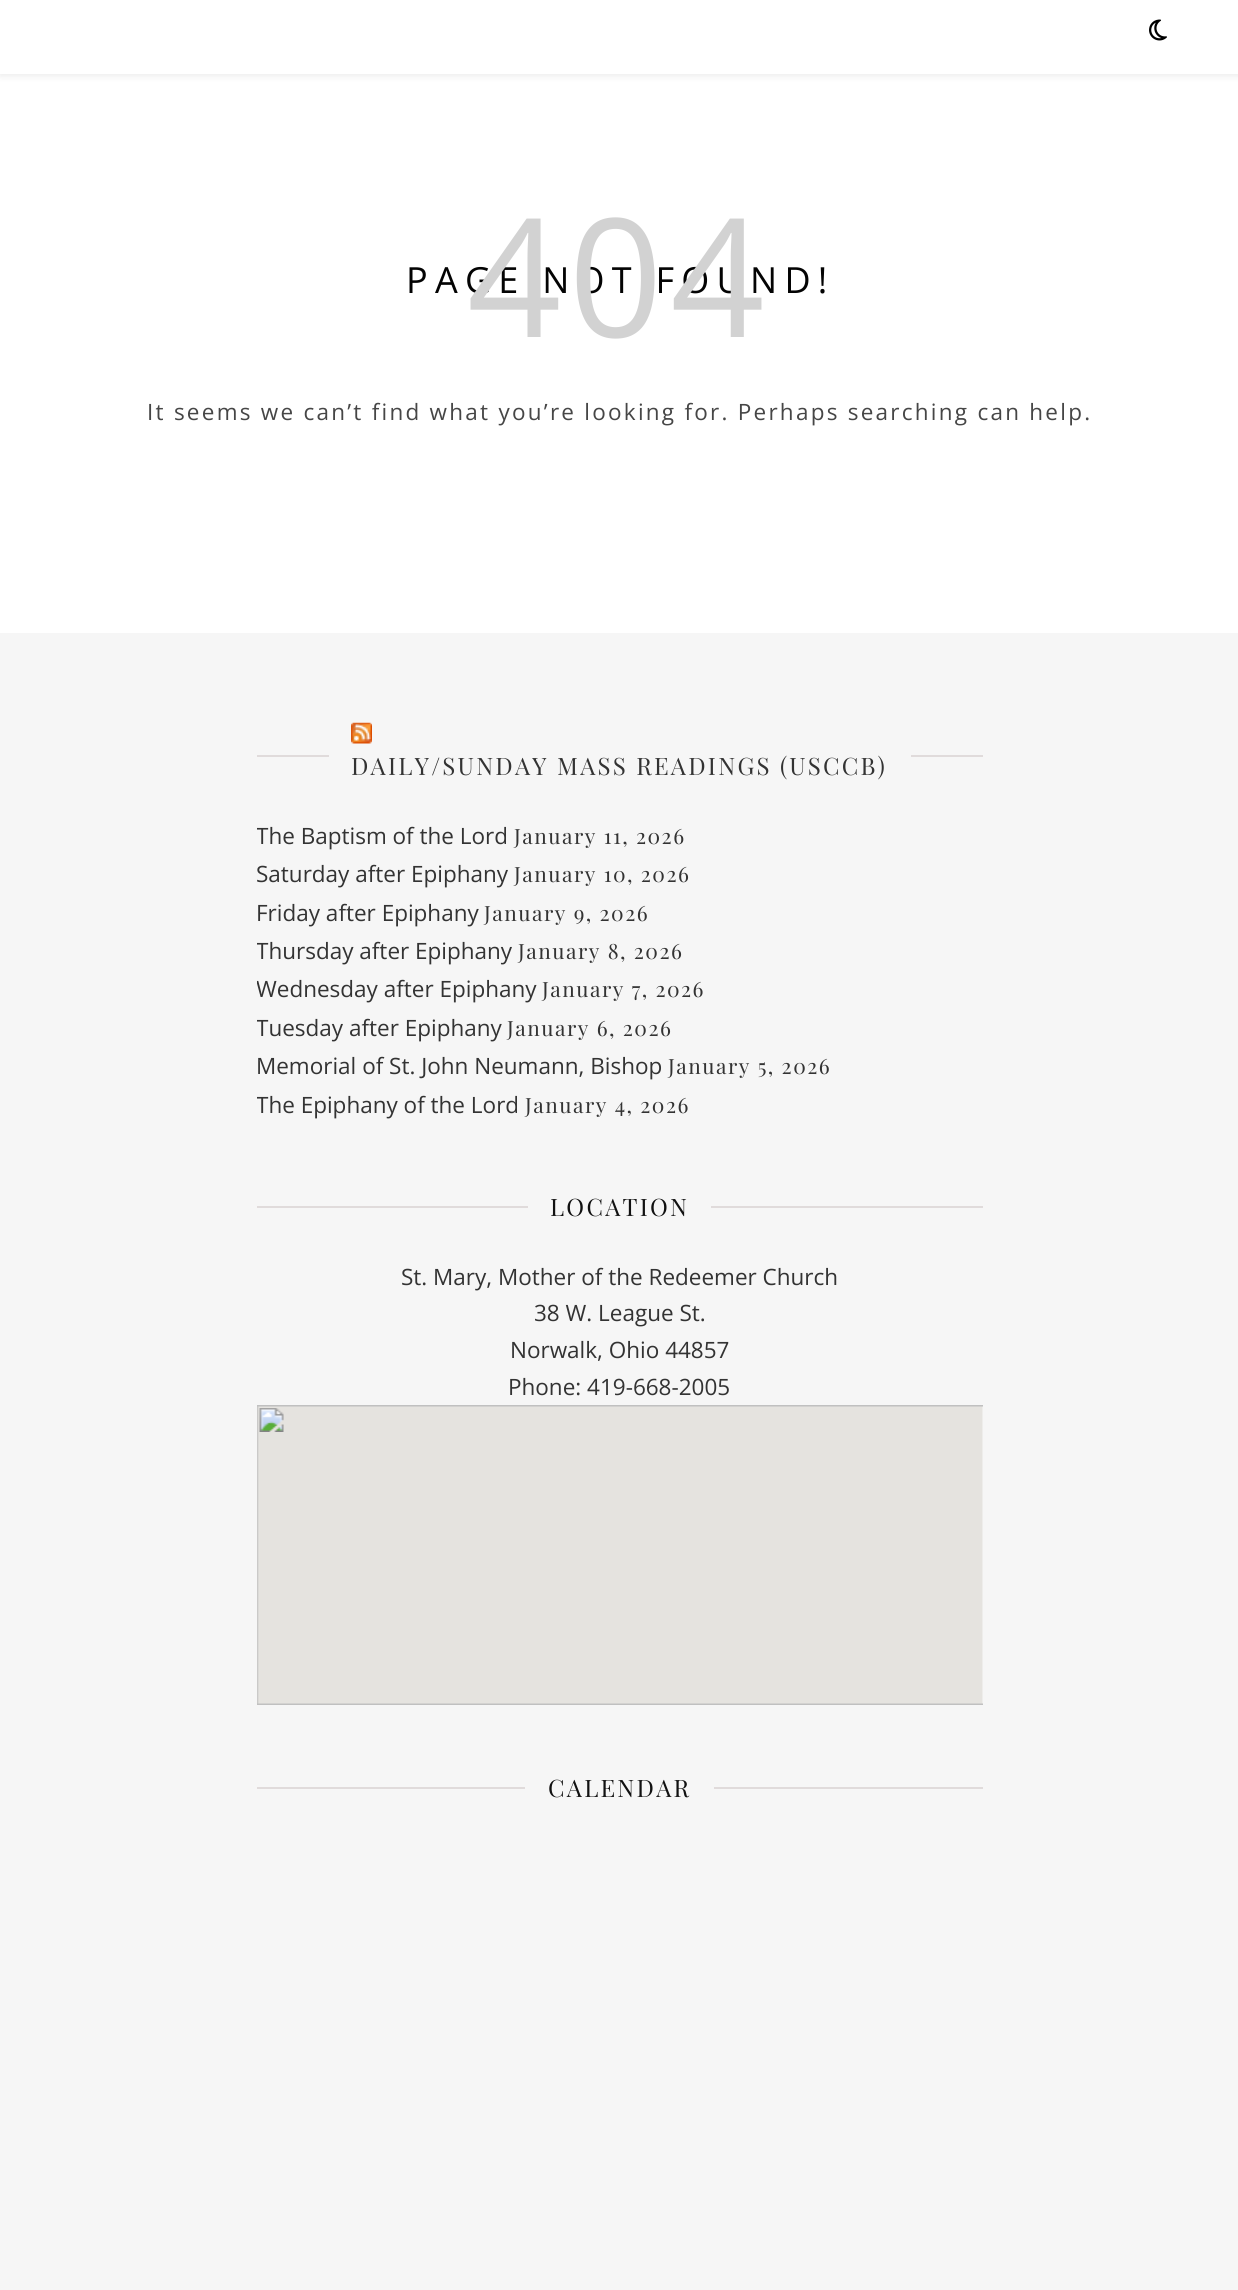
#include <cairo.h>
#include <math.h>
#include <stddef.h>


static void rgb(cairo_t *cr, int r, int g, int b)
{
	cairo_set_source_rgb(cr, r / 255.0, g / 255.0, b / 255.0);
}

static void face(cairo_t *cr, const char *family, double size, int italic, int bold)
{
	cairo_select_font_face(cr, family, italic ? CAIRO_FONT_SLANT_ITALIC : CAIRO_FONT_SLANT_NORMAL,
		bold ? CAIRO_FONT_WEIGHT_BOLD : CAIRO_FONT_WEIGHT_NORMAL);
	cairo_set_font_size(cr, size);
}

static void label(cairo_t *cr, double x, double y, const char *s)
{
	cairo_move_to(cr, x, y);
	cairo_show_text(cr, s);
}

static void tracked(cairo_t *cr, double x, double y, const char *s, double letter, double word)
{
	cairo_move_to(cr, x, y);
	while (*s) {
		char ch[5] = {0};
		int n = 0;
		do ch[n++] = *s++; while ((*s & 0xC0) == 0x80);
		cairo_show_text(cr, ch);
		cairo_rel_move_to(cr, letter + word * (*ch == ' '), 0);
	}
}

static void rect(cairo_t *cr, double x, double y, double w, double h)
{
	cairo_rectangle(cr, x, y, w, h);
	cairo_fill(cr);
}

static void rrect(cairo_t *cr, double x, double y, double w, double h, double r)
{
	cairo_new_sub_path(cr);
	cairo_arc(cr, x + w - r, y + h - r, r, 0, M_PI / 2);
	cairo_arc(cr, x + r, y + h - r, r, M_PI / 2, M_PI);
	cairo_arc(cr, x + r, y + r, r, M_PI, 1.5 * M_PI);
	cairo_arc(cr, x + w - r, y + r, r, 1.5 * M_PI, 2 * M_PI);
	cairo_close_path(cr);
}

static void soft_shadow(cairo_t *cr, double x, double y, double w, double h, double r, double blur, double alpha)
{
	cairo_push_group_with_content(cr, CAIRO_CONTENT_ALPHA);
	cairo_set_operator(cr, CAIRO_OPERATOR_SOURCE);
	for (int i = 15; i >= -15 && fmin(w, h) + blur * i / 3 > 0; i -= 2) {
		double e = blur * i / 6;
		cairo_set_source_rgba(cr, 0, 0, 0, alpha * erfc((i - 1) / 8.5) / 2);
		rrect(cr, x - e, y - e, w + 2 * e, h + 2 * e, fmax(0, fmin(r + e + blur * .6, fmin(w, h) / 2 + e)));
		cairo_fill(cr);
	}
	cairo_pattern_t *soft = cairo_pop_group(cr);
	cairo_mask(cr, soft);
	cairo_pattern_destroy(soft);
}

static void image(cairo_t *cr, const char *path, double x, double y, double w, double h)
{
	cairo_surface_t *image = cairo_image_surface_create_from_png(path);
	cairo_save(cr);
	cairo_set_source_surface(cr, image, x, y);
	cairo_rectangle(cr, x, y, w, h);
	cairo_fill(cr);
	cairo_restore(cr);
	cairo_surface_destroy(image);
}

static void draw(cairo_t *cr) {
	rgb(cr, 255, 255, 255);
	cairo_paint(cr);
	rgb(cr, 0, 0, 0);
	soft_shadow(cr, 0, -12, 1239, 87, 0, 4, 0.1);
	rgb(cr, 255, 255, 255);
	rect(cr, 0, 0, 1238, 74);
	image(cr, "image0.png", 1149, 19, 18, 22);
	face(cr, "Open Sans", 36, 0, 0);
	rgb(cr, 3, 3, 3);
	tracked(cr, 406, 293, "PAGE NOT FOUND!", 7.25, 0);
	face(cr, "Open Sans", 165, 0, 0);
	rgb(cr, 210, 210, 210);
	tracked(cr, 467, 337, "404", 7.25, 0);
	face(cr, "Open Sans", 22.5, 0, 0);
	rgb(cr, 70, 70, 70);
	tracked(cr, 147, 420, "It seems we can’t find what you’re looking for. Perhaps searching can help.", 2.25, 0);
	rgb(cr, 246, 246, 246);
	rect(cr, 0, 633, 1238, 1657);
	image(cr, "image1.png", 351, 722, 21, 22);
	rgb(cr, 224, 219, 219);
	rect(cr, 257, 755, 72, 2);
	face(cr, "Playfair Display", 24, 0, 0);
	rgb(cr, 51, 51, 51);
	tracked(cr, 351, 775, "DAILY/SUNDAY MASS READINGS (USCCB)", 2.25, 0);
	rgb(cr, 224, 219, 219);
	rect(cr, 911, 755, 72, 2);
	cairo_save(cr);
	cairo_rectangle(cr, 257, 723, 726, 401);
	cairo_clip(cr);
	face(cr, "Open Sans", 22.5, 0, 0);
	rgb(cr, 51, 51, 51);
	label(cr, 256, 844, "The Baptism of the Lord");
	cairo_restore(cr);
	face(cr, "Playfair Display", 21, 0, 0);
	rgb(cr, 51, 51, 51);
	tracked(cr, 514, 844, "January 11, 2026", 1.5, 0);
	face(cr, "Open Sans", 22.5, 0, 0);
	label(cr, 256, 882, "Saturday after Epiphany");
	face(cr, "Playfair Display", 21, 0, 0);
	tracked(cr, 514, 882, "January 10, 2026", 1.5, 0);
	face(cr, "Open Sans", 22.5, 0, 0);
	label(cr, 256, 921, "Friday after Epiphany");
	face(cr, "Playfair Display", 21, 0, 0);
	tracked(cr, 484, 921, "January 9, 2026", 1.5, 0);
	cairo_save(cr);
	cairo_rectangle(cr, 257, 723, 726, 401);
	cairo_clip(cr);
	face(cr, "Open Sans", 22.5, 0, 0);
	label(cr, 256, 959, "Thursday after Epiphany");
	cairo_restore(cr);
	tracked(cr, 518, 959, "January 8, 2026", 1.5, 0);
	cairo_save(cr);
	cairo_rectangle(cr, 257, 723, 726, 401);
	cairo_clip(cr);
	face(cr, "Open Sans", 22.5, 0, 0);
	label(cr, 256, 997, "Wednesday after Epiphany");
	cairo_restore(cr);
	tracked(cr, 542, 997, "January 7, 2026", 1.5, 0);
	cairo_save(cr);
	cairo_rectangle(cr, 257, 723, 726, 401);
	cairo_clip(cr);
	face(cr, "Open Sans", 22.5, 0, 0);
	label(cr, 256, 1036, "Tuesday after Epiphany");
	cairo_restore(cr);
	tracked(cr, 507, 1036, "January 6, 2026", 1.5, 0);
	face(cr, "Open Sans", 22.5, 0, 0);
	label(cr, 256, 1074, "Memorial of St. John Neumann, Bishop");
	face(cr, "Playfair Display", 21, 0, 0);
	tracked(cr, 668, 1074, "January 5, 2026", 1.5, 0);
	cairo_save(cr);
	cairo_rectangle(cr, 257, 723, 726, 401);
	cairo_clip(cr);
	face(cr, "Open Sans", 22.5, 0, 0);
	label(cr, 256, 1113, "The Epiphany of the Lord");
	cairo_restore(cr);
	tracked(cr, 525, 1113, "January 4, 2026", 1.5, 0);
	rgb(cr, 224, 219, 219);
	rect(cr, 257, 1206, 271, 2);
	face(cr, "Playfair Display", 24, 0, 0);
	rgb(cr, 17, 17, 17);
	tracked(cr, 550, 1216, "LOCATION", 2.25, 0);
	rgb(cr, 224, 219, 219);
	rect(cr, 711, 1206, 272, 2);
	face(cr, "Open Sans", 22.5, 0, 0);
	rgb(cr, 51, 51, 51);
	label(cr, 401, 1285, "St. Mary, Mother of the Redeemer Church");
	label(cr, 534, 1321, "38 W. League St.");
	label(cr, 510, 1358, "Norwalk, Ohio 44857");
	label(cr, 508, 1395, "Phone: 419-668-2005");
	image(cr, "image2.png", 257, 1405, 726, 300);
	rgb(cr, 224, 219, 219);
	rect(cr, 257, 1787, 268, 2);
	face(cr, "Playfair Display", 24, 0, 0);
	rgb(cr, 17, 17, 17);
	tracked(cr, 548, 1797, "CALENDAR", 2.25, 0);
	rgb(cr, 224, 219, 219);
	rect(cr, 714, 1787, 269, 2);
}

int main(void) {
	cairo_surface_t *surface = cairo_image_surface_create(CAIRO_FORMAT_RGB24, 1238, 2290);
	cairo_t *cr = cairo_create(surface);
	cairo_font_options_t *options = cairo_font_options_create();
	cairo_font_options_set_hint_metrics(options, CAIRO_HINT_METRICS_OFF);
	cairo_font_options_set_hint_style(options, CAIRO_HINT_STYLE_NONE);
	cairo_set_font_options(cr, options);
	cairo_set_miter_limit(cr, 4);
	draw(cr);
	cairo_surface_write_to_png(surface, "render.png");
	cairo_font_options_destroy(options);
	cairo_destroy(cr);
	cairo_surface_destroy(surface);
	return 0;
}
